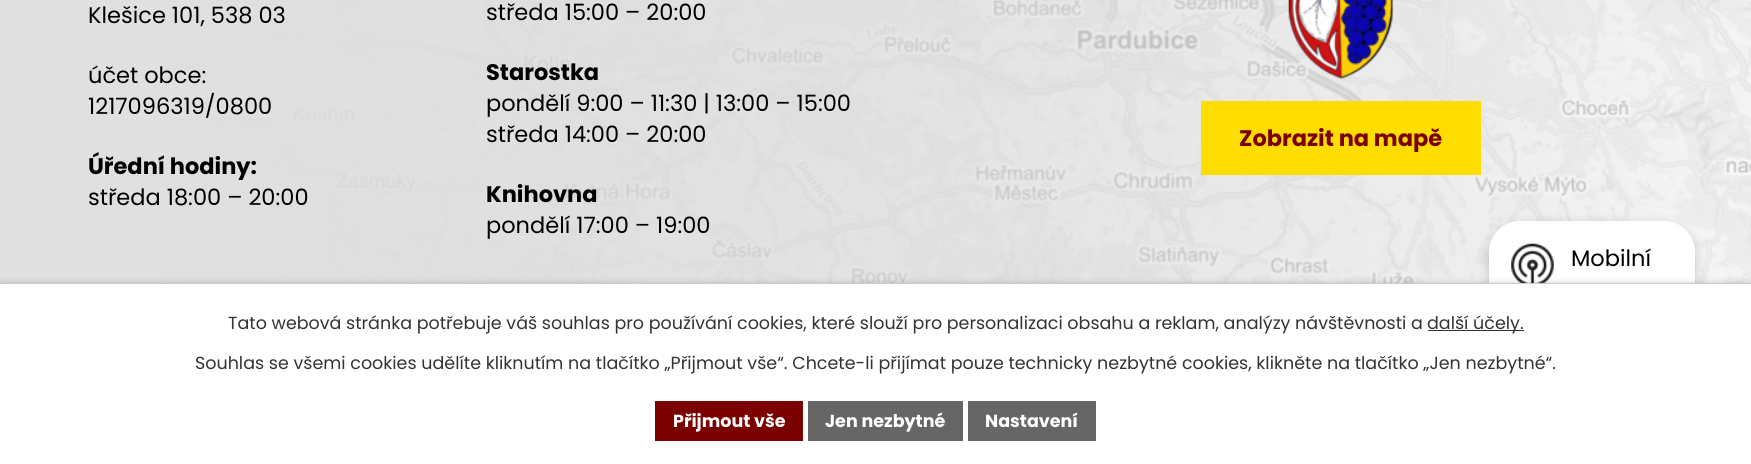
#include <cairo.h>
#include <math.h>
#include <stddef.h>


static void rgb(cairo_t *cr, int r, int g, int b)
{
	cairo_set_source_rgb(cr, r / 255.0, g / 255.0, b / 255.0);
}

static void face(cairo_t *cr, const char *family, double size, int italic, int bold)
{
	cairo_select_font_face(cr, family, italic ? CAIRO_FONT_SLANT_ITALIC : CAIRO_FONT_SLANT_NORMAL,
		bold ? CAIRO_FONT_WEIGHT_BOLD : CAIRO_FONT_WEIGHT_NORMAL);
	cairo_set_font_size(cr, size);
}

static void label(cairo_t *cr, double x, double y, const char *s)
{
	cairo_move_to(cr, x, y);
	cairo_show_text(cr, s);
}

static void rect(cairo_t *cr, double x, double y, double w, double h)
{
	cairo_rectangle(cr, x, y, w, h);
	cairo_fill(cr);
}

static void rrect(cairo_t *cr, double x, double y, double w, double h, double r)
{
	cairo_new_sub_path(cr);
	cairo_arc(cr, x + w - r, y + h - r, r, 0, M_PI / 2);
	cairo_arc(cr, x + r, y + h - r, r, M_PI / 2, M_PI);
	cairo_arc(cr, x + r, y + r, r, M_PI, 1.5 * M_PI);
	cairo_arc(cr, x + w - r, y + r, r, 1.5 * M_PI, 2 * M_PI);
	cairo_close_path(cr);
}

static void soft_shadow(cairo_t *cr, double x, double y, double w, double h, double r, double blur, double alpha)
{
	cairo_push_group_with_content(cr, CAIRO_CONTENT_ALPHA);
	cairo_set_operator(cr, CAIRO_OPERATOR_SOURCE);
	for (int i = 15; i >= -15 && fmin(w, h) + blur * i / 3 > 0; i -= 2) {
		double e = blur * i / 6;
		cairo_set_source_rgba(cr, 0, 0, 0, alpha * erfc((i - 1) / 8.5) / 2);
		rrect(cr, x - e, y - e, w + 2 * e, h + 2 * e, fmax(0, fmin(r + e + blur * .6, fmin(w, h) / 2 + e)));
		cairo_fill(cr);
	}
	cairo_pattern_t *soft = cairo_pop_group(cr);
	cairo_mask(cr, soft);
	cairo_pattern_destroy(soft);
}

static void image(cairo_t *cr, const char *path, double x, double y, double w, double h)
{
	cairo_surface_t *image = cairo_image_surface_create_from_png(path);
	cairo_save(cr);
	cairo_set_source_surface(cr, image, x, y);
	cairo_rectangle(cr, x, y, w, h);
	cairo_fill(cr);
	cairo_restore(cr);
	cairo_surface_destroy(image);
}

static void draw(cairo_t *cr) {
	rgb(cr, 255, 255, 255);
	cairo_paint(cr);
	image(cr, "image0.png", 0, 0, 1751, 283);
	face(cr, "Poppins", 22.5, 0, 0);
	rgb(cr, 0, 0, 0);
	label(cr, 88, 23, "Klešice 101, 538 03");
	label(cr, 88, 83, "účet obce:");
	label(cr, 88, 114, "1217096319/0800");
	face(cr, "Poppins", 22.5, 0, 1);
	label(cr, 88, 174, "Úřední hodiny:");
	face(cr, "Poppins", 22.5, 0, 0);
	label(cr, 88, 205, "středa 18:00 – 20:00");
	label(cr, 486, 20, "středa 15:00 – 20:00");
	face(cr, "Poppins", 22.5, 0, 1);
	label(cr, 486, 80, "Starostka");
	face(cr, "Poppins", 22.5, 0, 0);
	label(cr, 486, 111, "pondělí 9:00 – 11:30 | 13:00 – 15:00");
	label(cr, 486, 142, "středa 14:00 – 20:00");
	face(cr, "Poppins", 22.5, 0, 1);
	label(cr, 486, 202, "Knihovna");
	face(cr, "Poppins", 22.5, 0, 0);
	label(cr, 486, 233, "pondělí 17:00 – 19:00");
	image(cr, "image1.png", 1288, 0, 105, 79);
	rgb(cr, 255, 221, 0);
	rect(cr, 1201, 101, 280, 74);
	face(cr, "Poppins", 22.5, 0, 1);
	rgb(cr, 123, 0, 0);
	label(cr, 1239, 146, "Zobrazit na mapě");
	rgb(cr, 0, 0, 0);
	soft_shadow(cr, 1489, 225, 206, 188, 31, 6, 0.2);
	rgb(cr, 255, 255, 255);
	rrect(cr, 1489, 221, 206, 188, 31);
	cairo_fill(cr);
	image(cr, "image2.png", 1511, 243, 43, 40);
	face(cr, "Poppins", 22.5, 0, 0);
	rgb(cr, 0, 0, 0);
	label(cr, 1571, 266, "Mobilní");
	rgb(cr, 0, 0, 0);
	soft_shadow(cr, 0, 283, 1751, 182, 0, 3, 0.2);
	rgb(cr, 255, 255, 255);
	rect(cr, 0, 284, 1751, 180);
	rgb(cr, 204, 204, 204);
	rect(cr, 0, 283, 1751, 1);
	face(cr, "Poppins", 17.5, 0, 0);
	rgb(cr, 51, 51, 51);
	label(cr, 228, 329, "Tato webová stránka potřebuje váš souhlas pro používání cookies, které slouží pro personalizaci obsahu a reklam, analýzy návštěvnosti a");
	rect(cr, 1428, 330, 96, 1);
	label(cr, 1427, 329, "další účely.");
	label(cr, 195, 369, "Souhlas se všemi cookies udělíte kliknutím na tlačítko „Přijmout vše“. Chcete-li přijímat pouze technicky nezbytné cookies, klikněte na tlačítko „Jen nezbytné“.");
	rgb(cr, 123, 0, 0);
	rect(cr, 655, 401, 148, 40);
	face(cr, "Poppins", 17.5, 0, 1);
	rgb(cr, 255, 255, 255);
	label(cr, 673, 427, "Přijmout vše");
	rgb(cr, 102, 102, 102);
	rect(cr, 808, 401, 155, 40);
	rgb(cr, 255, 255, 255);
	label(cr, 825, 427, "Jen nezbytné");
	rgb(cr, 102, 102, 102);
	rect(cr, 968, 401, 128, 40);
	rgb(cr, 255, 255, 255);
	label(cr, 985, 427, "Nastavení");
}

int main(void) {
	cairo_surface_t *surface = cairo_image_surface_create(CAIRO_FORMAT_RGB24, 1751, 464);
	cairo_t *cr = cairo_create(surface);
	cairo_font_options_t *options = cairo_font_options_create();
	cairo_font_options_set_hint_metrics(options, CAIRO_HINT_METRICS_OFF);
	cairo_font_options_set_hint_style(options, CAIRO_HINT_STYLE_NONE);
	cairo_set_font_options(cr, options);
	cairo_set_miter_limit(cr, 4);
	draw(cr);
	cairo_surface_write_to_png(surface, "render.png");
	cairo_font_options_destroy(options);
	cairo_destroy(cr);
	cairo_surface_destroy(surface);
	return 0;
}
